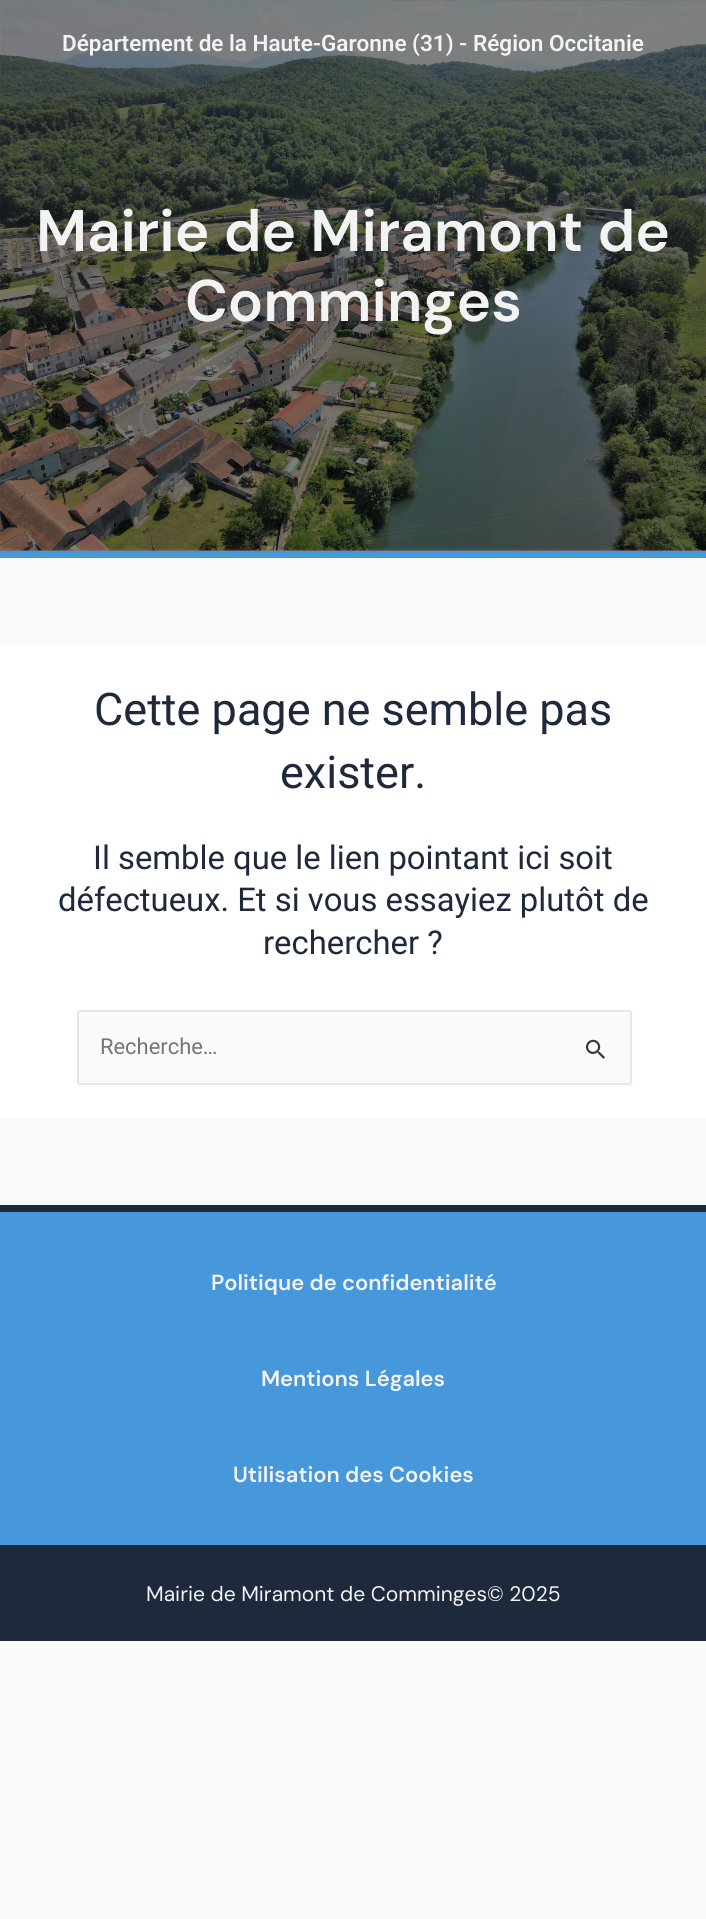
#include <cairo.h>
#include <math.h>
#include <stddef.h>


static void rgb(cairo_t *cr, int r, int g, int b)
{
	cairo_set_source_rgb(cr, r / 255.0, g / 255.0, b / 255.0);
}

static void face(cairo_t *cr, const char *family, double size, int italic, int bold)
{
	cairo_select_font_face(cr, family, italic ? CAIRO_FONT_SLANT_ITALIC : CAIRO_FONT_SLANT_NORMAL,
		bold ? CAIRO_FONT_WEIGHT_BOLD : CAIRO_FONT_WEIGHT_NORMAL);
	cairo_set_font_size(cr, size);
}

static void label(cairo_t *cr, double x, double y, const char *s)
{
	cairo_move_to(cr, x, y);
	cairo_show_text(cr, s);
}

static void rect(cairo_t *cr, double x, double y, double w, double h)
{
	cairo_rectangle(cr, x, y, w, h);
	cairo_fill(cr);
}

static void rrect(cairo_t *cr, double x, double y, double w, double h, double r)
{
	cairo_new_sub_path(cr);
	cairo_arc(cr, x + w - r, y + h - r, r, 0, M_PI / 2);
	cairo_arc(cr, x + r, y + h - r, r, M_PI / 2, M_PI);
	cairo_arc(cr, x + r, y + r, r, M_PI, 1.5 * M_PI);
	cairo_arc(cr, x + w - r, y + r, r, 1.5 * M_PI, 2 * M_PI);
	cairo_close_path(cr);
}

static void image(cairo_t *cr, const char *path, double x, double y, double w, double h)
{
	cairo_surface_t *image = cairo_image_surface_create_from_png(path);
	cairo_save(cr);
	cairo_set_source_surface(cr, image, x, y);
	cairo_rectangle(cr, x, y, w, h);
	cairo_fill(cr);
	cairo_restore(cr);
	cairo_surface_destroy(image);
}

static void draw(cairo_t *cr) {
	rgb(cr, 249, 250, 251);
	cairo_paint(cr);
	image(cr, "image0.png", 0, 0, 706, 551);
	rgb(cr, 71, 151, 219);
	rect(cr, 0, 551, 706, 7);
	face(cr, "Roboto SemiBold", 22.5, 0, 0);
	rgb(cr, 243, 243, 243);
	label(cr, 62, 51, "Département de la Haute-Garonne (31) - Région Occitanie");
	face(cr, "DM Sans SemiBold", 58.5, 0, 0);
	label(cr, 36, 251, "Mairie de Miramont de");
	label(cr, 185, 321, "Comminges");
	image(cr, "image1.png", 343, 487, 20, 18);
	rgb(cr, 255, 255, 255);
	rect(cr, 0, 645, 706, 473);
	face(cr, "Roboto", 45, 0, 0);
	rgb(cr, 30, 41, 59);
	label(cr, 94, 725, "Cette page ne semble pas");
	label(cr, 280, 788, "exister.");
	face(cr, "Roboto", 32.8, 0, 0);
	label(cr, 93, 869, "Il semble que le lien pointant ici soit");
	label(cr, 58, 911, "défectueux. Et si vous essayiez plutôt de");
	label(cr, 263, 954, "rechercher ?");
	rgb(cr, 250, 250, 250);
	rrect(cr, 78, 1011, 553, 73, 2);
	cairo_fill_preserve(cr);
	rgb(cr, 226, 232, 240);
	cairo_stroke(cr);
	face(cr, "Roboto", 21.9, 0, 0);
	rgb(cr, 117, 117, 117);
	label(cr, 100, 1054, "Recherche…");
	image(cr, "image2.png", 586, 1039, 19, 20);
	rgb(cr, 71, 151, 219);
	rect(cr, 0, 1212, 706, 333);
	rgb(cr, 30, 41, 59);
	rect(cr, 0, 1205, 706, 7);
	face(cr, "DM Sans SemiBold", 21.9, 0, 0);
	rgb(cr, 243, 243, 243);
	label(cr, 211, 1290, "Politique de confidentialité");
	label(cr, 261, 1386, "Mentions Légales");
	label(cr, 233, 1482, "Utilisation des Cookies");
	rgb(cr, 30, 41, 59);
	rect(cr, 0, 1545, 706, 96);
	face(cr, "DM Sans", 21, 0, 0);
	rgb(cr, 243, 243, 243);
	label(cr, 146, 1601, "Mairie de Miramont de Comminges© 2025");
}

int main(void) {
	cairo_surface_t *surface = cairo_image_surface_create(CAIRO_FORMAT_RGB24, 706, 1919);
	cairo_t *cr = cairo_create(surface);
	cairo_font_options_t *options = cairo_font_options_create();
	cairo_font_options_set_hint_metrics(options, CAIRO_HINT_METRICS_OFF);
	cairo_font_options_set_hint_style(options, CAIRO_HINT_STYLE_NONE);
	cairo_set_font_options(cr, options);
	cairo_set_miter_limit(cr, 4);
	draw(cr);
	cairo_surface_write_to_png(surface, "render.png");
	cairo_font_options_destroy(options);
	cairo_destroy(cr);
	cairo_surface_destroy(surface);
	return 0;
}
